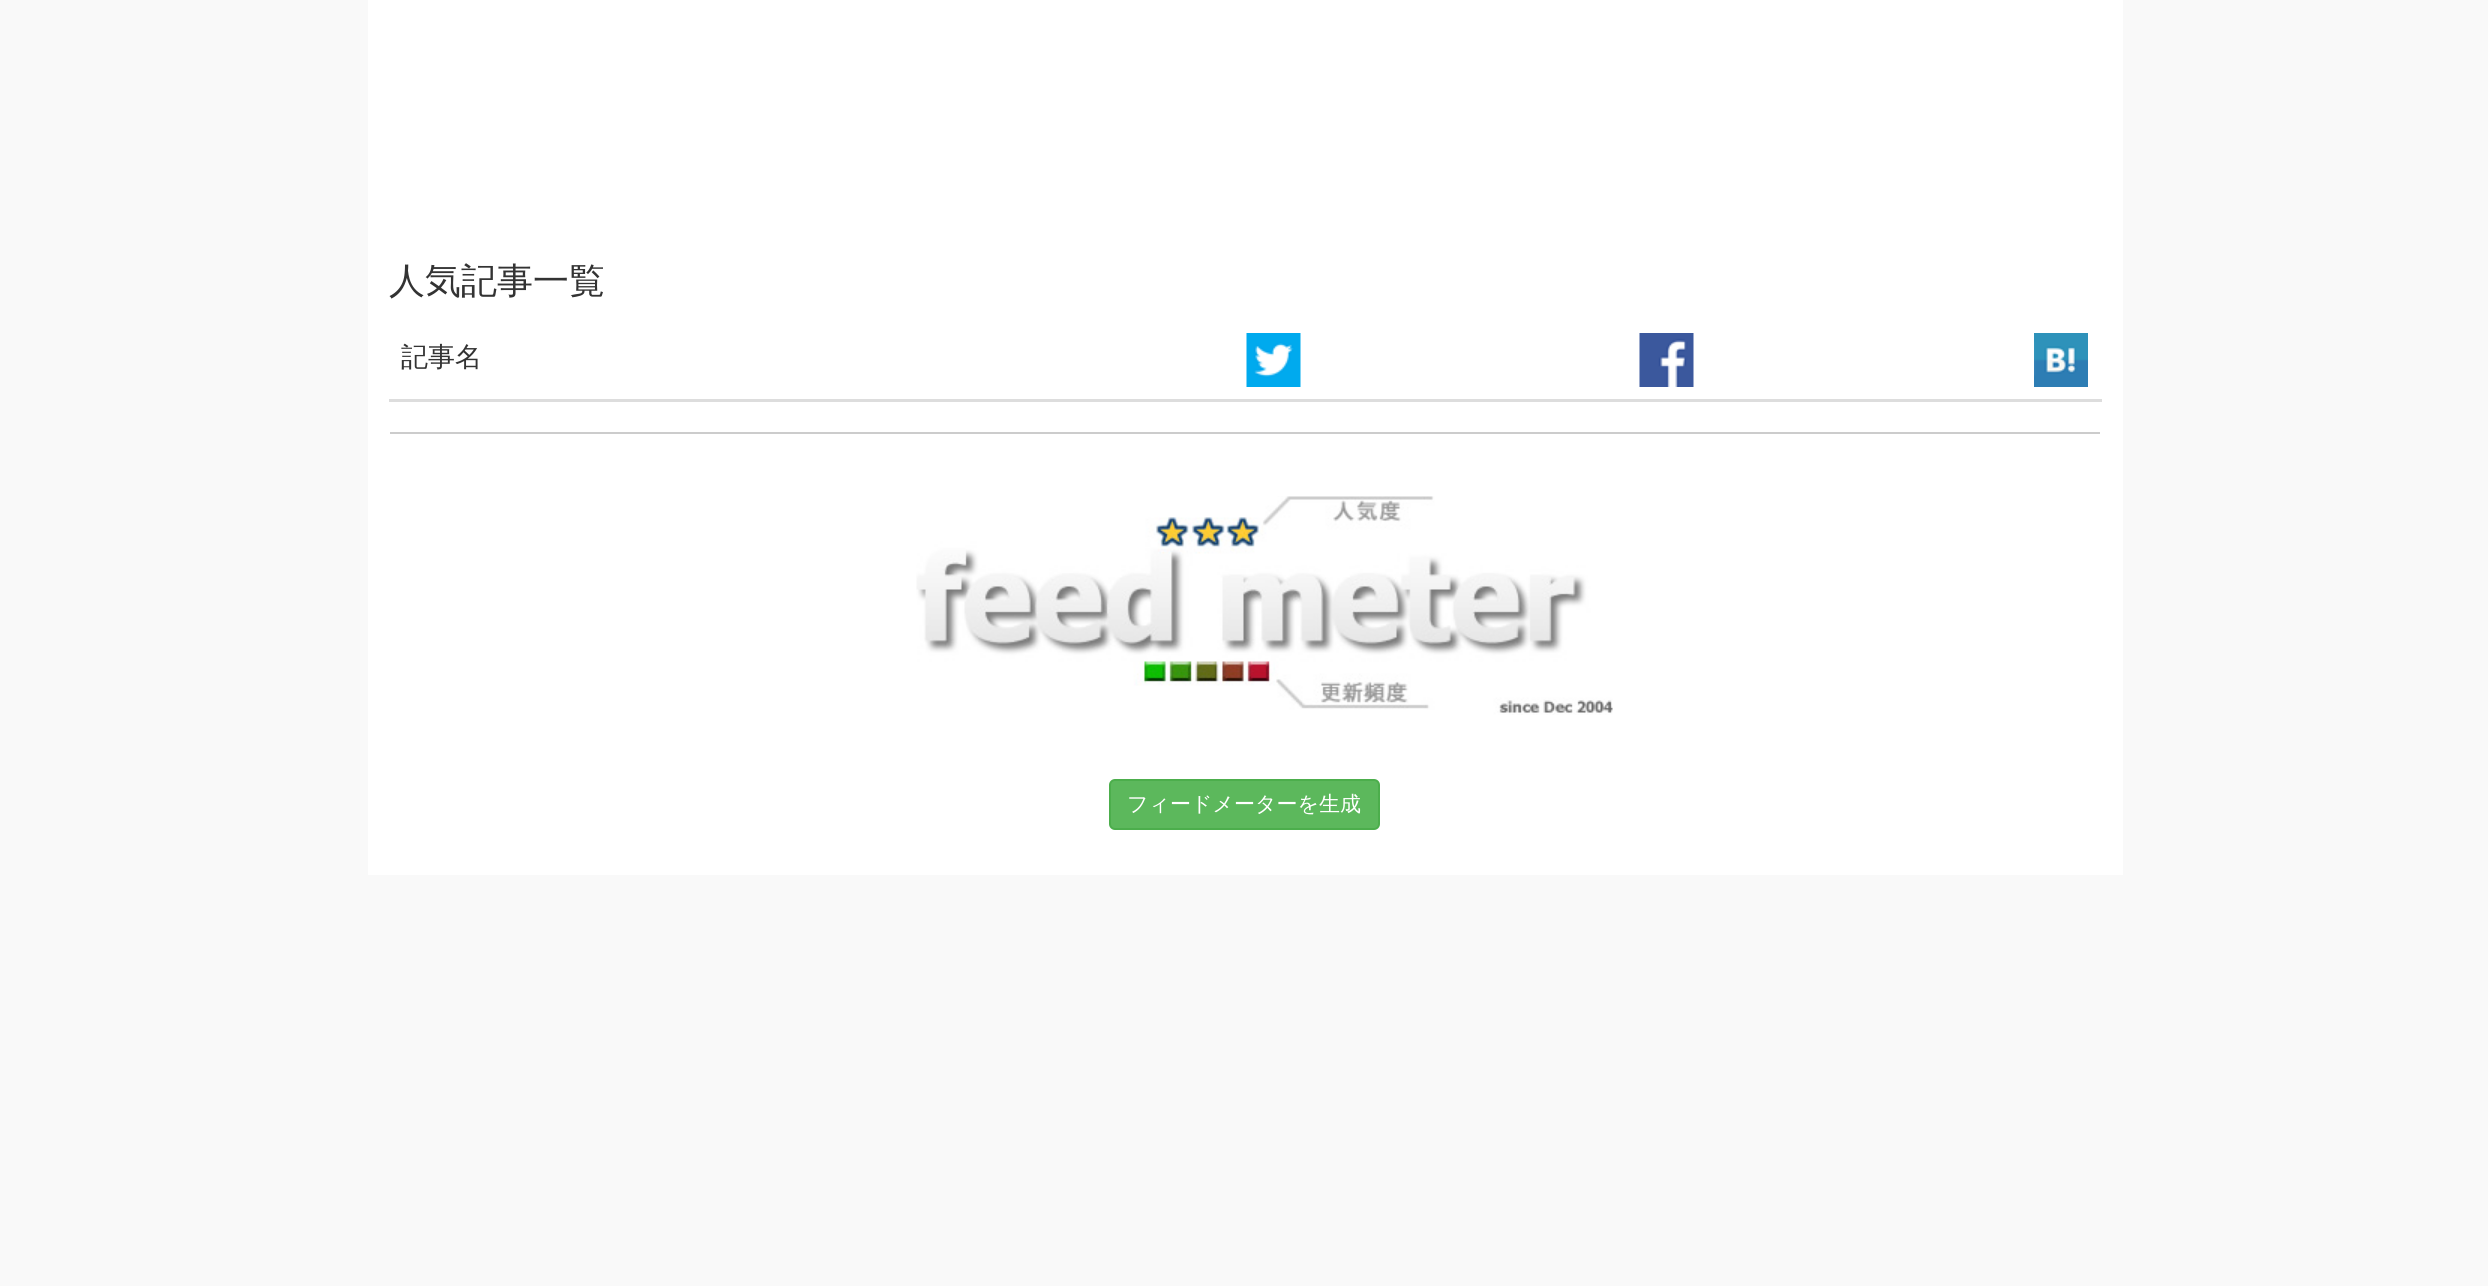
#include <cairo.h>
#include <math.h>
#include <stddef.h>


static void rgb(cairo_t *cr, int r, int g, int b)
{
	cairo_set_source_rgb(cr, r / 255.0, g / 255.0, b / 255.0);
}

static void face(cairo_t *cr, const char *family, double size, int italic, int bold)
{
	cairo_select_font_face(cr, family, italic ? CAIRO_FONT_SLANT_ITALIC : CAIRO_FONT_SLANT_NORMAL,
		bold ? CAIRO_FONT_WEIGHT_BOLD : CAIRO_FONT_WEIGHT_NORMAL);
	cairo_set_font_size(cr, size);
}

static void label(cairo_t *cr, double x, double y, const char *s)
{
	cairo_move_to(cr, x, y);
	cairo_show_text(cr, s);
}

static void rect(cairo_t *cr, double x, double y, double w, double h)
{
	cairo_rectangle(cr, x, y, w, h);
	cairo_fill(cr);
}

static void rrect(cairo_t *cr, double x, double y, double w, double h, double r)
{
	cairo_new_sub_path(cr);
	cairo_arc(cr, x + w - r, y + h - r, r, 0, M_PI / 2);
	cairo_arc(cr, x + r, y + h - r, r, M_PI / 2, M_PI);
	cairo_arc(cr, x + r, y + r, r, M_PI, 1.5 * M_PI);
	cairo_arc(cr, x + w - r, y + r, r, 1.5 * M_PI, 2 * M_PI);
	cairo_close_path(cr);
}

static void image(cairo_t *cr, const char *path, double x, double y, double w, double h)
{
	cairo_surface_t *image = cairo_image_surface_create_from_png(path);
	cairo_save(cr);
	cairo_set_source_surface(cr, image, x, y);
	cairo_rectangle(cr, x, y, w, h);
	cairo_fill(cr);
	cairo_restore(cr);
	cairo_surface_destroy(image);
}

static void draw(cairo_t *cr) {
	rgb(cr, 249, 249, 249);
	cairo_paint(cr);
	rgb(cr, 255, 255, 255);
	rect(cr, 368, 0, 1755, 875);
	face(cr, "WenQuanYi Zen Hei Medium", 36, 0, 0);
	rgb(cr, 51, 51, 51);
	label(cr, 389, 293, "人気記事一覧");
	rgb(cr, 221, 221, 221);
	rect(cr, 389, 399, 1713, 3);
	image(cr, "image0.png", 2034, 333, 54, 54);
	face(cr, "WenQuanYi Zen Hei Medium", 27, 0, 0);
	rgb(cr, 51, 51, 51);
	label(cr, 401, 366, "記事名");
	image(cr, "image1.png", 1246, 333, 55, 54);
	image(cr, "image2.png", 1639, 333, 55, 54);
	rgb(cr, 204, 204, 204);
	rect(cr, 390, 432, 1710, 2);
	image(cr, "image3.png", 916, 496, 697, 219);
	rgb(cr, 92, 184, 92);
	rrect(cr, 1110, 780, 269, 49, 5);
	cairo_fill_preserve(cr);
	rgb(cr, 76, 174, 76);
	cairo_stroke(cr);
	face(cr, "WenQuanYi Zen Hei Medium", 21, 0, 0);
	rgb(cr, 255, 255, 255);
	label(cr, 1127, 811, "フィードメーターを生成");
}

int main(void) {
	cairo_surface_t *surface = cairo_image_surface_create(CAIRO_FORMAT_RGB24, 2488, 1286);
	cairo_t *cr = cairo_create(surface);
	cairo_font_options_t *options = cairo_font_options_create();
	cairo_font_options_set_hint_metrics(options, CAIRO_HINT_METRICS_OFF);
	cairo_font_options_set_hint_style(options, CAIRO_HINT_STYLE_NONE);
	cairo_set_font_options(cr, options);
	cairo_set_miter_limit(cr, 4);
	draw(cr);
	cairo_surface_write_to_png(surface, "render.png");
	cairo_font_options_destroy(options);
	cairo_destroy(cr);
	cairo_surface_destroy(surface);
	return 0;
}
